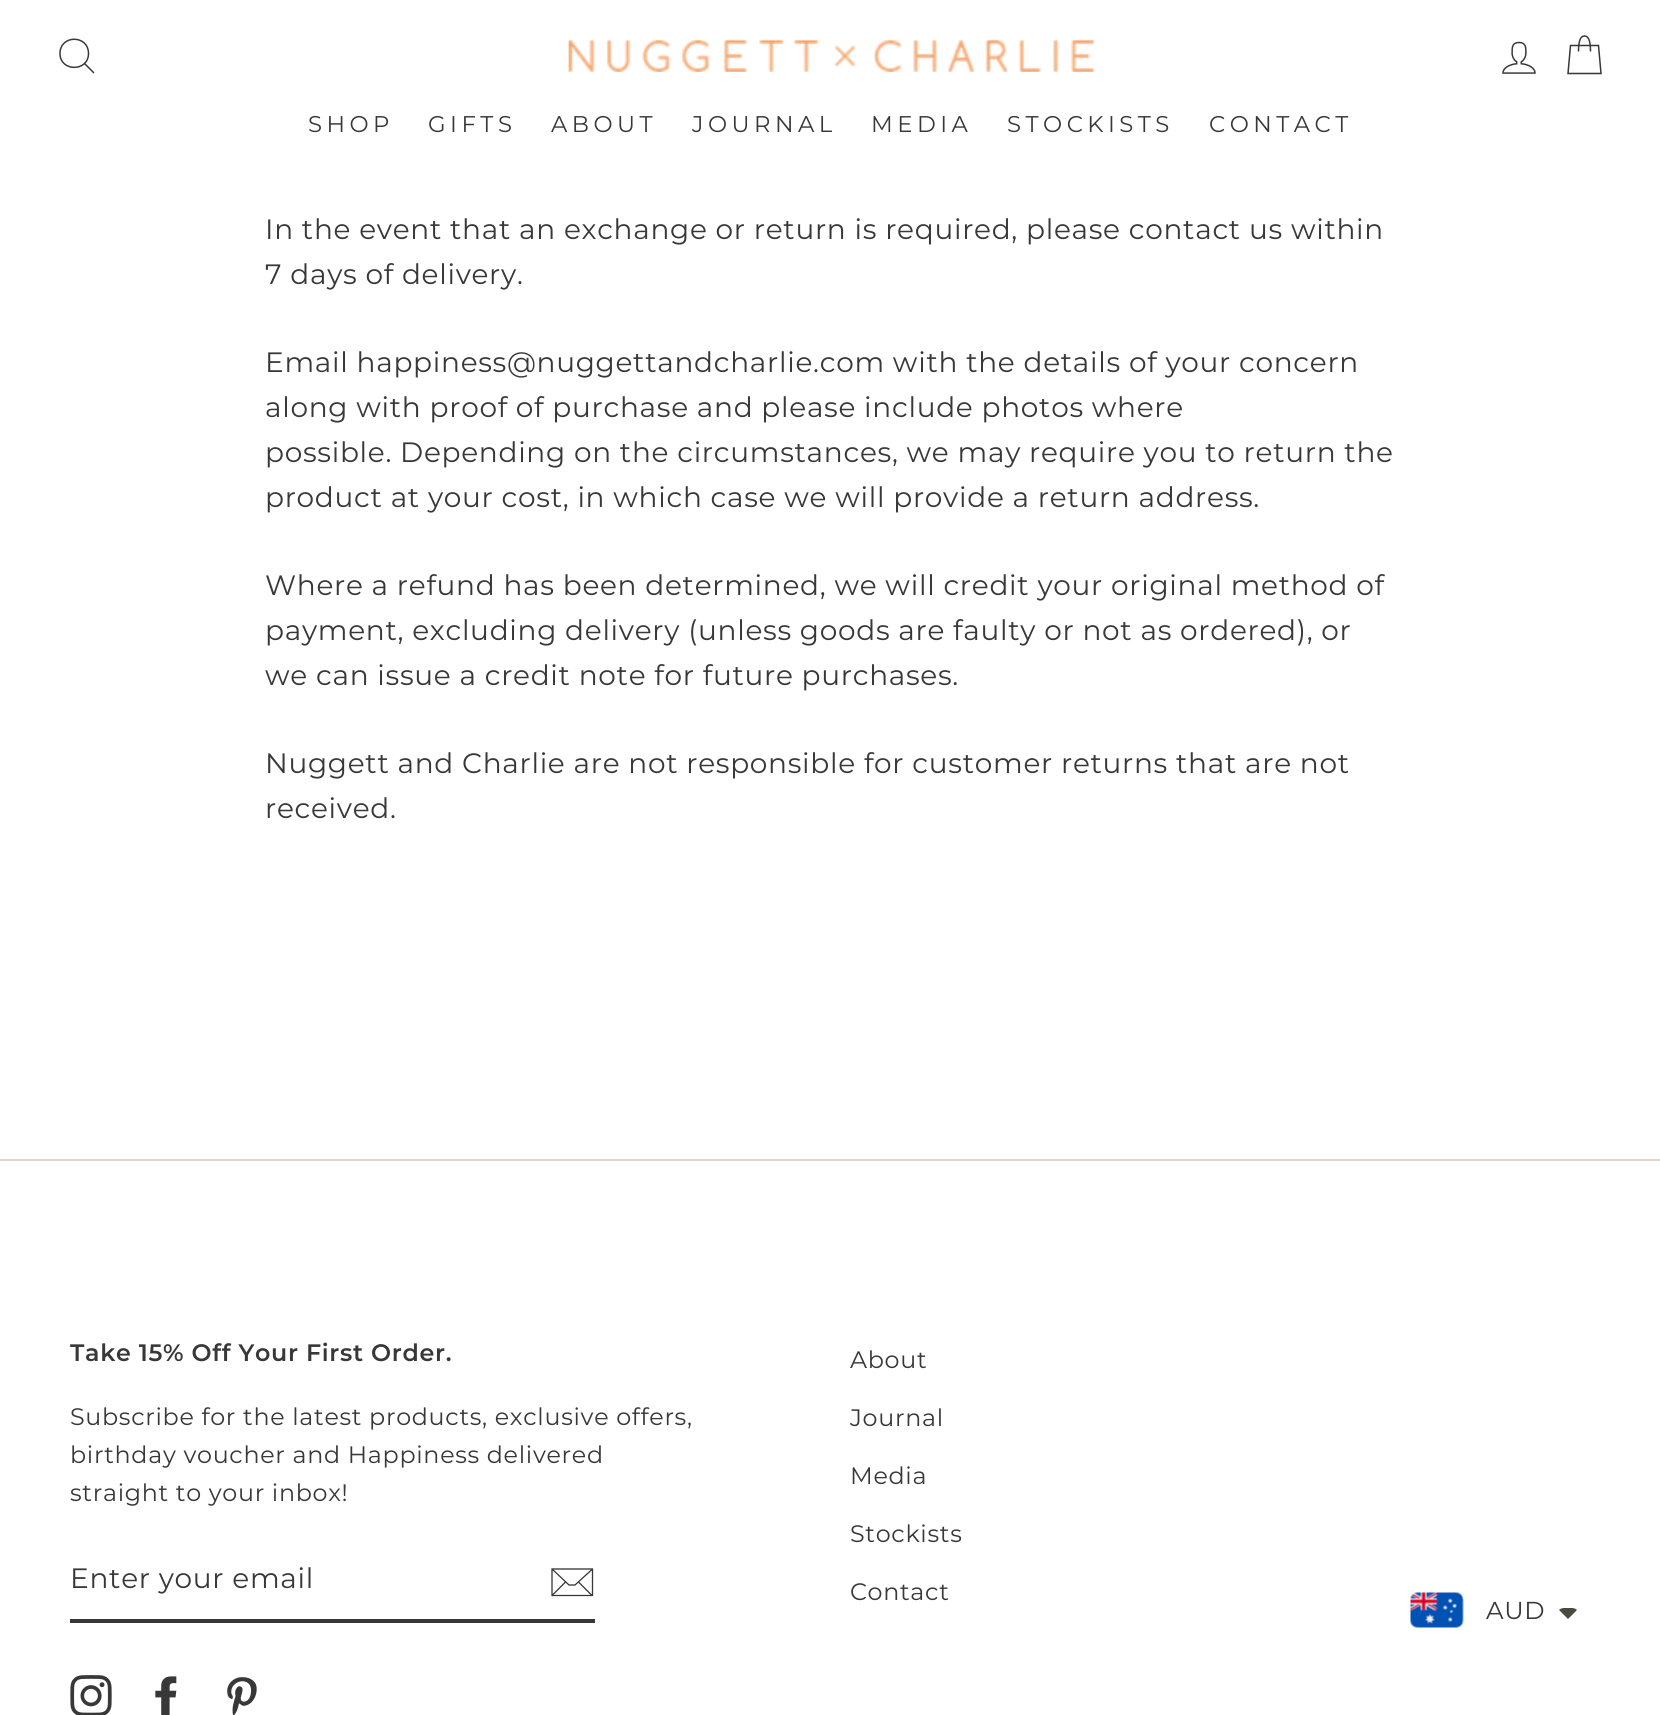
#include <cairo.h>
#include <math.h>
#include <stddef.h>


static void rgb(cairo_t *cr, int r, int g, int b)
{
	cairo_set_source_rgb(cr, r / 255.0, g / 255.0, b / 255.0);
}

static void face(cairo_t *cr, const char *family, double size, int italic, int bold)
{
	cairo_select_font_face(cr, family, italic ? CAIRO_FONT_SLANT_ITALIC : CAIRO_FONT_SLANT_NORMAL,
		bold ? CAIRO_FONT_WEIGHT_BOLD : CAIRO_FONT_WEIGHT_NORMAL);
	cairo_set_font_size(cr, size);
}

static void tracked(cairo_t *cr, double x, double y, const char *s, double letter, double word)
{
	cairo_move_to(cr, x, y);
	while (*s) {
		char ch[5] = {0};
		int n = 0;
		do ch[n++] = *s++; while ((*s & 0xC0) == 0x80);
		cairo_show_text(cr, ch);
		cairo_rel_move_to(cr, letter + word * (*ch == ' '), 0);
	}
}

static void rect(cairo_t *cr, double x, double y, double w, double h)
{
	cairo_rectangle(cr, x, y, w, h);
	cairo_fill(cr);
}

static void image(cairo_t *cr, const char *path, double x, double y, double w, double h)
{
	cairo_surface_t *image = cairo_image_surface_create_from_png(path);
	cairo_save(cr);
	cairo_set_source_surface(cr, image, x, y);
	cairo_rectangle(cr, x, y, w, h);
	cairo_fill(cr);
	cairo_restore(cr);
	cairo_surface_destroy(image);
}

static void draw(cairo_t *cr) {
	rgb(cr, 255, 255, 255);
	cairo_paint(cr);
	cairo_new_path(cr);
	cairo_move_to(cr, 88.5, 53.5);
	cairo_curve_to(cr, 88.5, 72, 60, 72, 60, 53.5);
	cairo_curve_to(cr, 60, 34.5, 88.5, 34.5, 88.5, 53.5);
	cairo_close_path(cr);
	cairo_move_to(cr, 94, 73);
	cairo_line_to(cr, 84.5, 63.5);
	rgb(cr, 56, 56, 56);
	cairo_set_line_width(cr, 1.5);
	cairo_stroke(cr);
	image(cr, "image0.png", 568, 39, 526, 33);
	image(cr, "image1.png", 1502, 41, 34, 33);
	cairo_new_path(cr);
	cairo_move_to(cr, 1578.5, 51.5);
	cairo_curve_to(cr, 1578.5, 39.5, 1581, 36, 1584.5, 36);
	cairo_curve_to(cr, 1588, 36, 1590.5, 39.5, 1590.5, 51.5);
	cairo_move_to(cr, 1570.5, 45.5);
	cairo_line_to(cr, 1598.5, 45.5);
	cairo_line_to(cr, 1601, 73.5);
	cairo_line_to(cr, 1568, 73.5);
	cairo_close_path(cr);
	cairo_stroke(cr);
	face(cr, "Montserrat", 22.75, 0, 0);
	tracked(cr, 308, 132, "SHOP", 4.5, 0);
	tracked(cr, 428, 132, "GIFTS", 4.5, 0);
	tracked(cr, 551, 132, "ABOUT", 4.5, 0);
	tracked(cr, 692, 132, "JOURNAL", 4.5, 0);
	tracked(cr, 871, 132, "MEDIA", 4.5, 0);
	tracked(cr, 1007, 132, "STOCKISTS", 4.5, 0);
	tracked(cr, 1209, 132, "CONTACT", 4.5, 0);
	face(cr, "Montserrat", 28, 0, 0);
	tracked(cr, 265, 239, "In the event that an exchange or return is required, please contact us within", 0.7, 0);
	tracked(cr, 265, 284, "7 days of delivery.", 0.7, 0);
	tracked(cr, 265, 372, "Email happiness@nuggettandcharlie.com with the details of your concern", 0.7, 0);
	tracked(cr, 265, 417, "along with proof of purchase and please include photos where", 0.7, 0);
	tracked(cr, 265, 462, "possible. Depending on the circumstances, we may require you to return the", 0.7, 0);
	tracked(cr, 265, 507, "product at your cost, in which case we will provide a return address.", 0.7, 0);
	tracked(cr, 265, 595, "Where a refund has been determined, we will credit your original method of", 0.7, 0);
	tracked(cr, 265, 640, "payment, excluding delivery (unless goods are faulty or not as ordered), or", 0.7, 0);
	tracked(cr, 265, 685, "we can issue a credit note for future purchases.", 0.7, 0);
	tracked(cr, 265, 773, "Nuggett and Charlie are not responsible for customer returns that are not", 0.7, 0);
	tracked(cr, 265, 818, "received.", 0.7, 0);
	rgb(cr, 224, 211, 202);
	rect(cr, 0, 1159, 1660, 2);
	face(cr, "Montserrat SemiBold", 23.8, 0, 0);
	rgb(cr, 56, 56, 56);
	tracked(cr, 70, 1361, "Take 15% Off Your First Order.", 0.7, 0);
	face(cr, "Montserrat", 23.8, 0, 0);
	tracked(cr, 70, 1425, "Subscribe for the latest products, exclusive offers,", 0.7, 0);
	tracked(cr, 70, 1463, "birthday voucher and Happiness delivered", 0.7, 0);
	tracked(cr, 70, 1501, "straight to your inbox!", 0.7, 0);
	rect(cr, 70, 1619, 525, 4);
	face(cr, "Montserrat", 28, 0, 0);
	tracked(cr, 70, 1588, "Enter your email", 0.7, 0);
	cairo_new_path(cr);
	cairo_move_to(cr, 592.5, 1595.5);
	cairo_line_to(cr, 552, 1595.5);
	cairo_line_to(cr, 552, 1569);
	cairo_line_to(cr, 592.5, 1569);
	cairo_close_path(cr);
	cairo_move_to(cr, 552, 1569);
	cairo_line_to(cr, 569, 1585);
	cairo_line_to(cr, 575, 1585);
	cairo_line_to(cr, 592.5, 1569);
	cairo_move_to(cr, 565.5, 1582);
	cairo_line_to(cr, 552.5, 1595);
	cairo_move_to(cr, 592, 1595.5);
	cairo_line_to(cr, 578.5, 1582);
	cairo_set_line_width(cr, 1.3);
	cairo_stroke(cr);
	image(cr, "image2.png", 70, 1675, 42, 40);
	image(cr, "image3.png", 155, 1676, 22, 39);
	image(cr, "image4.png", 227, 1677, 30, 38);
	face(cr, "Montserrat", 23.8, 0, 0);
	tracked(cr, 850, 1368, "About", 0.7, 0);
	tracked(cr, 850, 1426, "Journal", 0.7, 0);
	tracked(cr, 850, 1484, "Media", 0.7, 0);
	tracked(cr, 850, 1542, "Stockists", 0.7, 0);
	tracked(cr, 850, 1600, "Contact", 0.7, 0);
	image(cr, "image5.png", 1410, 1592, 54, 36);
	face(cr, "Montserrat", 24.5, 0, 0);
	tracked(cr, 1486, 1619, "AUD", 0.7, 0);
	rgb(cr, 71, 73, 66);
	cairo_new_path(cr);
	cairo_move_to(cr, 1559, 1610);
	cairo_curve_to(cr, 1561.5, 1607.5, 1565, 1608, 1568, 1608);
	cairo_curve_to(cr, 1571, 1608, 1574.5, 1607.5, 1577, 1610);
	cairo_line_to(cr, 1568, 1619);
	cairo_close_path(cr);
	cairo_fill(cr);
}

int main(void) {
	cairo_surface_t *surface = cairo_image_surface_create(CAIRO_FORMAT_RGB24, 1660, 1715);
	cairo_t *cr = cairo_create(surface);
	cairo_font_options_t *options = cairo_font_options_create();
	cairo_font_options_set_hint_metrics(options, CAIRO_HINT_METRICS_OFF);
	cairo_font_options_set_hint_style(options, CAIRO_HINT_STYLE_NONE);
	cairo_set_font_options(cr, options);
	cairo_set_miter_limit(cr, 4);
	draw(cr);
	cairo_surface_write_to_png(surface, "render.png");
	cairo_font_options_destroy(options);
	cairo_destroy(cr);
	cairo_surface_destroy(surface);
	return 0;
}
